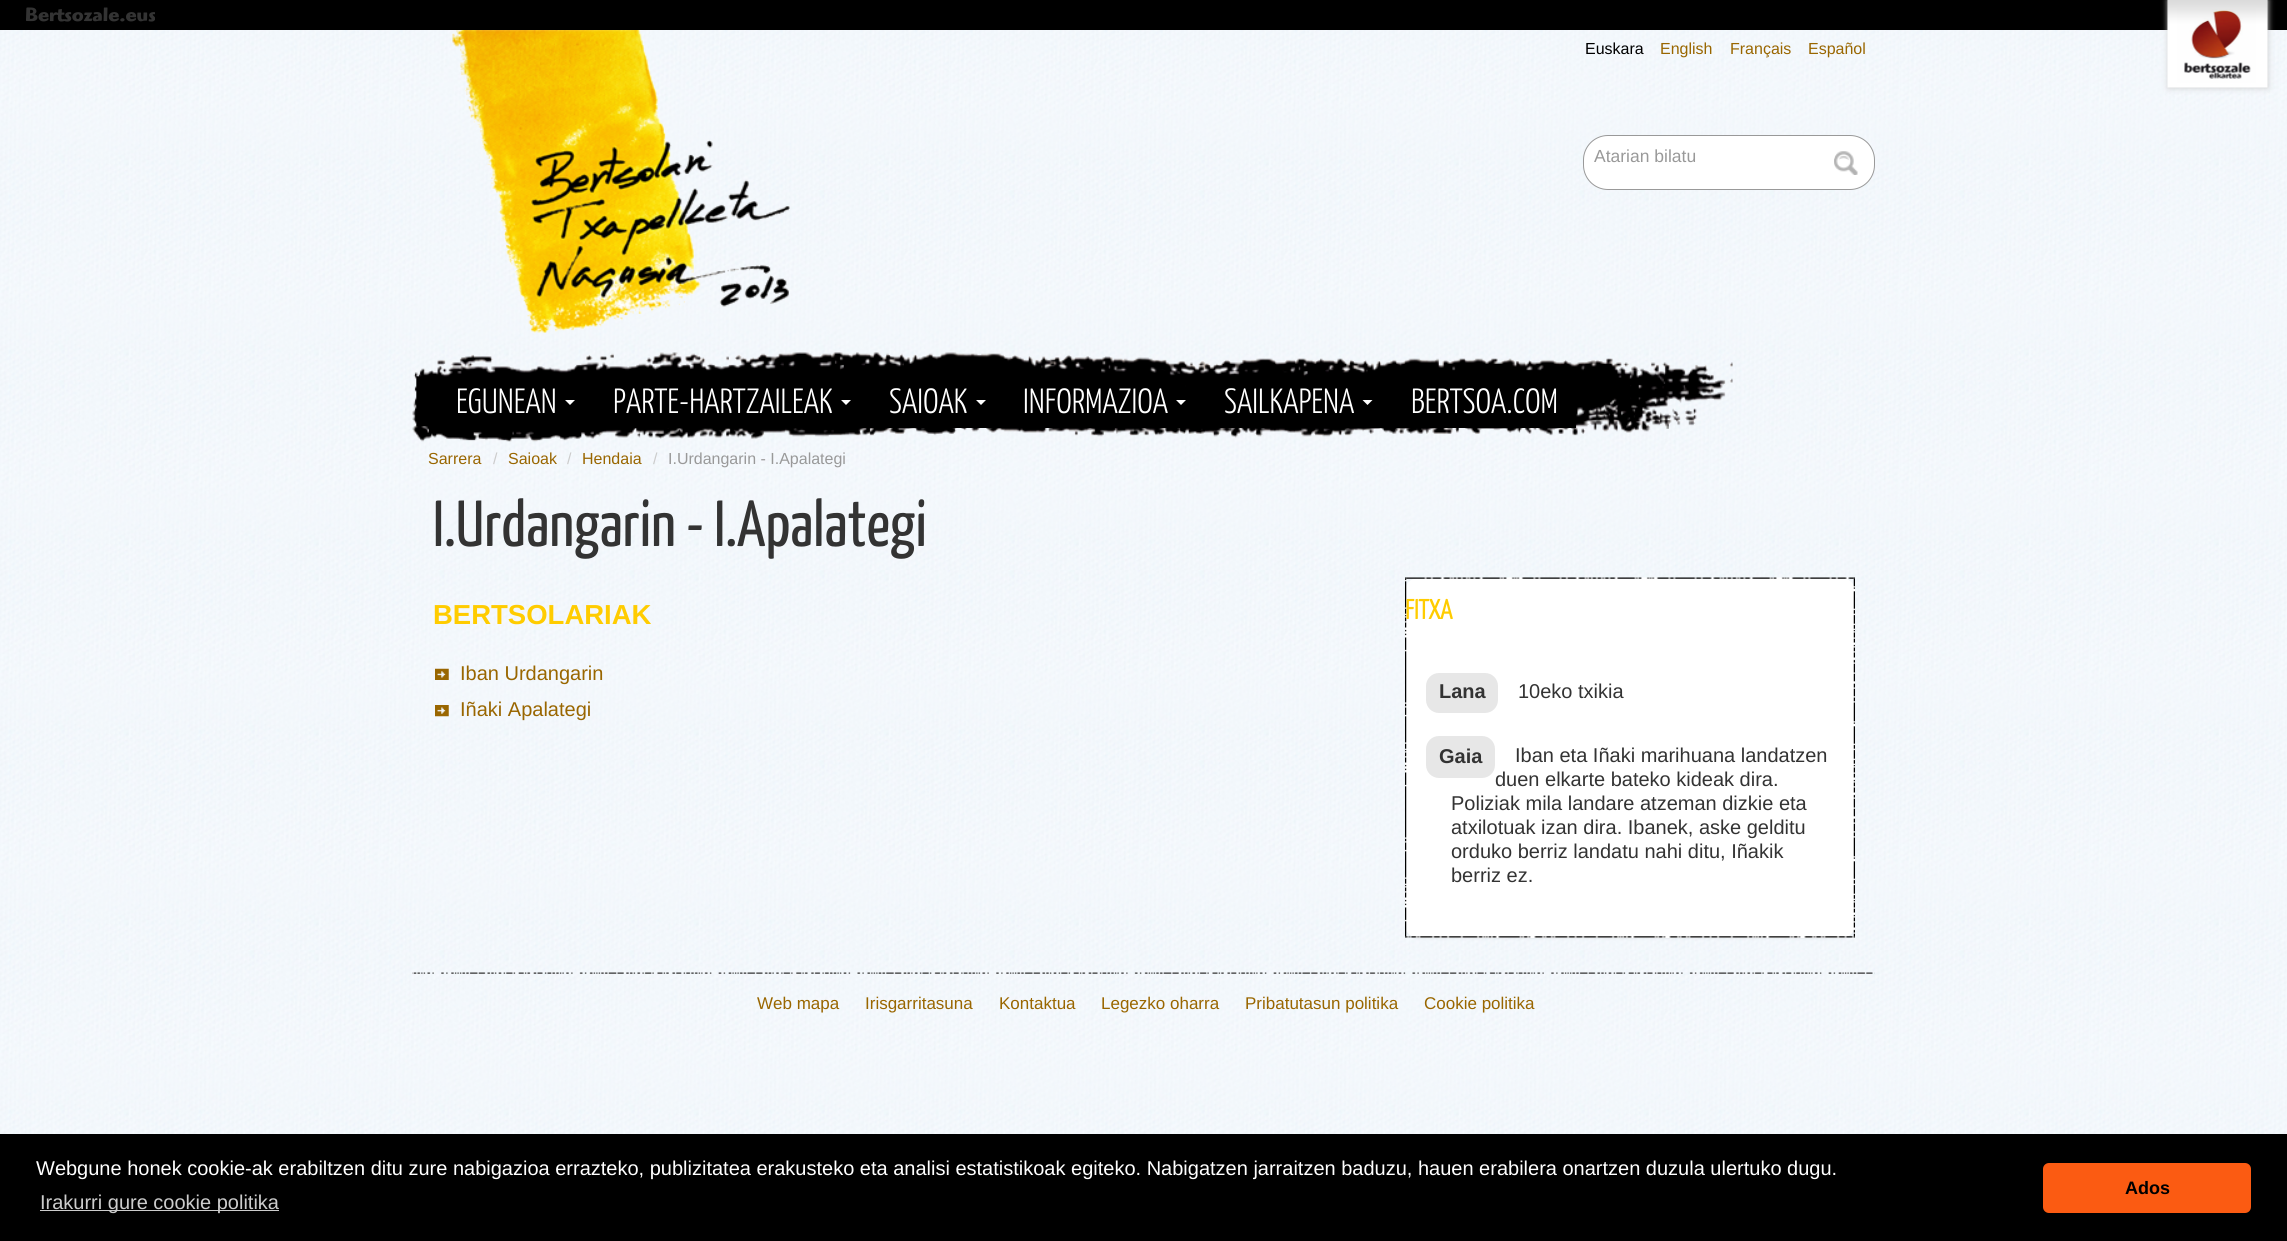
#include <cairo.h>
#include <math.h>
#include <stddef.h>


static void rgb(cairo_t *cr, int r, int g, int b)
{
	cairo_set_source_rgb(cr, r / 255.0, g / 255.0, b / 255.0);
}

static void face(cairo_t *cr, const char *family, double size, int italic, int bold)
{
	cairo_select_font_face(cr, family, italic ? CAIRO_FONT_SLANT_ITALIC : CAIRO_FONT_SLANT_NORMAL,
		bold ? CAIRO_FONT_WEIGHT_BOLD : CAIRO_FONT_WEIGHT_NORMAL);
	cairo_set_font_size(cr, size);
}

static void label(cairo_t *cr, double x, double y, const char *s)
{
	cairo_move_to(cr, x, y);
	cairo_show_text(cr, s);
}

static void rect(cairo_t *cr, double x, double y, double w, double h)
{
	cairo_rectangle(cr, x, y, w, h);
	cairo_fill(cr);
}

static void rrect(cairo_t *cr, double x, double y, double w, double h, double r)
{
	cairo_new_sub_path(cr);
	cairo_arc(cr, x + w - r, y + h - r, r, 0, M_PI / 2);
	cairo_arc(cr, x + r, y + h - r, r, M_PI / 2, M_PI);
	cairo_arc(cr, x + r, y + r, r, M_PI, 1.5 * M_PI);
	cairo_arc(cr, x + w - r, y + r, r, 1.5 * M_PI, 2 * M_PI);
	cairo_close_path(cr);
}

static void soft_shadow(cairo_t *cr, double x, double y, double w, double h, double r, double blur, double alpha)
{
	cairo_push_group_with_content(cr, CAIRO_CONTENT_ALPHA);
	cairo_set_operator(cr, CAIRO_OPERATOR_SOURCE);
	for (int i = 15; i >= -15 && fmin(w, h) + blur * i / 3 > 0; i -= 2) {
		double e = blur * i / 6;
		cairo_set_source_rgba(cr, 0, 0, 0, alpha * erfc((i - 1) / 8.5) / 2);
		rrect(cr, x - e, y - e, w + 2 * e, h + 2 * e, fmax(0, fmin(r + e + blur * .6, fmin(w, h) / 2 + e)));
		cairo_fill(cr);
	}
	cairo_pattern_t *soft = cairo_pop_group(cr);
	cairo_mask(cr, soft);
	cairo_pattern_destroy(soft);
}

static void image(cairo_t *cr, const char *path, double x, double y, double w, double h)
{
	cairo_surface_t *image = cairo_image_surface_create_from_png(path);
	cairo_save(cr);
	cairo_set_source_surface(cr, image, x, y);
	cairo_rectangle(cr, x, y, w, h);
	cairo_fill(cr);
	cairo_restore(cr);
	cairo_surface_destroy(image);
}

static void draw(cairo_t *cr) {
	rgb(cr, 255, 255, 255);
	cairo_paint(cr);
	image(cr, "image0.png", 0, 30, 2287, 1104);
	rgb(cr, 0, 0, 0);
	rect(cr, 0, 0, 2287, 30);
	face(cr, "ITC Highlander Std", 20, 0, 1);
	rgb(cr, 51, 51, 51);
	label(cr, 25, 21, "Bertsozale.eus");
	rgb(cr, 204, 204, 204);
	soft_shadow(cr, 2168, 0, 100, 88, 0, 3, 1);
	image(cr, "image1.png", 2167, 0, 101, 88);
	image(cr, "image2.png", 452, 30, 338, 303);
	face(cr, "Liberation Sans", 16, 0, 0);
	rgb(cr, 0, 0, 0);
	label(cr, 1585, 54, "Euskara");
	rgb(cr, 153, 102, 0);
	label(cr, 1660, 54, "English");
	label(cr, 1730, 54, "Français");
	label(cr, 1808, 54, "Español");
	rgb(cr, 255, 255, 255);
	rrect(cr, 1583.5, 135.5, 291, 54, 24.5);
	cairo_fill_preserve(cr);
	rgb(cr, 153, 153, 153);
	cairo_set_line_width(cr, 1);
	cairo_stroke(cr);
	face(cr, "Liberation Sans", 17.5, 0, 0);
	label(cr, 1594, 162, "Atarian bilatu");
	image(cr, "image3.png", 1834, 151, 24, 24);
	image(cr, "image4.png", 412, 352, 1321, 90);
	face(cr, "Yanone Kaffeesatz Light", 35, 0, 0);
	rgb(cr, 255, 255, 255);
	label(cr, 456, 413, "EGUNEAN");
	cairo_new_path(cr);
	cairo_move_to(cr, 565, 400);
	cairo_line_to(cr, 575, 400);
	cairo_line_to(cr, 570, 405);
	cairo_close_path(cr);
	cairo_fill(cr);
	rgb(cr, 0, 0, 0);
	rect(cr, 634, 426, 368, 2);
	rgb(cr, 255, 255, 255);
	label(cr, 613, 413, "PARTE-HARTZAILEAK");
	cairo_new_path(cr);
	cairo_move_to(cr, 841, 400);
	cairo_line_to(cr, 851, 400);
	cairo_line_to(cr, 846, 405);
	cairo_close_path(cr);
	cairo_fill(cr);
	label(cr, 889, 413, "SAIOAK");
	cairo_new_path(cr);
	cairo_move_to(cr, 976, 400);
	cairo_line_to(cr, 986, 400);
	cairo_line_to(cr, 981, 405);
	cairo_close_path(cr);
	cairo_fill(cr);
	rgb(cr, 0, 0, 0);
	rect(cr, 1044, 384, 141, 44);
	rgb(cr, 255, 255, 255);
	label(cr, 1023, 413, "INFORMAZIOA");
	cairo_new_path(cr);
	cairo_move_to(cr, 1176, 400);
	cairo_line_to(cr, 1186, 400);
	cairo_line_to(cr, 1181, 405);
	cairo_close_path(cr);
	cairo_fill(cr);
	rgb(cr, 0, 0, 0);
	rect(cr, 1219, 417, 165, 11);
	rgb(cr, 255, 255, 255);
	label(cr, 1224, 413, "SAILKAPENA");
	cairo_new_path(cr);
	cairo_move_to(cr, 1362.5, 400);
	cairo_line_to(cr, 1372.5, 400);
	cairo_line_to(cr, 1367.5, 405);
	cairo_close_path(cr);
	cairo_fill(cr);
	rgb(cr, 0, 0, 0);
	rect(cr, 1396, 420, 180, 8);
	rgb(cr, 255, 255, 255);
	label(cr, 1411, 413, "BERTSOA.COM");
	face(cr, "Liberation Sans", 16, 0, 0);
	rgb(cr, 153, 102, 0);
	label(cr, 428, 464, "Sarrera");
	rgb(cr, 204, 204, 204);
	label(cr, 493, 464, "/");
	rgb(cr, 153, 102, 0);
	label(cr, 508, 464, "Saioak");
	rgb(cr, 204, 204, 204);
	label(cr, 567, 464, "/");
	rgb(cr, 153, 102, 0);
	label(cr, 582, 464, "Hendaia");
	rgb(cr, 204, 204, 204);
	label(cr, 653, 464, "/");
	rgb(cr, 153, 153, 153);
	label(cr, 668, 464, "I.Urdangarin - I.Apalategi");
	face(cr, "Yanone Kaffeesatz", 65, 0, 0);
	rgb(cr, 51, 51, 51);
	label(cr, 433, 546, "I.Urdangarin - I.Apalategi");
	face(cr, "Liberation Sans", 27.5, 0, 1);
	rgb(cr, 255, 204, 0);
	label(cr, 433, 624, "BERTSOLARIAK");
	image(cr, "image5.png", 435, 668, 14, 12);
	face(cr, "Liberation Sans", 20, 0, 0);
	rgb(cr, 153, 102, 0);
	label(cr, 460, 680, "Iban Urdangarin");
	image(cr, "image6.png", 435, 705, 14, 12);
	label(cr, 460, 716, "Iñaki Apalategi");
	rgb(cr, 0, 0, 0);
	soft_shadow(cr, 1405, 579, 450, 360, 13, 1, 0.05);
	rgb(cr, 255, 255, 255);
	rrect(cr, 1405, 578, 450, 360, 13);
	cairo_fill(cr);
	image(cr, "image7.png", 1405, 577, 450, 361);
	face(cr, "Yanone Kaffeesatz", 27.5, 0, 1);
	rgb(cr, 255, 204, 0);
	label(cr, 1405, 619, "FITXA");
	rgb(cr, 231, 231, 231);
	rrect(cr, 1426, 673, 72, 40, 13);
	cairo_fill(cr);
	face(cr, "Liberation Sans", 20, 0, 1);
	rgb(cr, 51, 51, 51);
	label(cr, 1439, 698, "Lana");
	face(cr, "Liberation Sans", 20, 0, 0);
	label(cr, 1518, 698, "10eko txikia");
	label(cr, 1515, 762, "Iban eta Iñaki marihuana landatzen");
	label(cr, 1495, 786, "duen elkarte bateko kideak dira.");
	label(cr, 1451, 810, "Poliziak mila landare atzeman dizkie eta");
	label(cr, 1451, 834, "atxilotuak izan dira. Ibanek, aske gelditu");
	label(cr, 1451, 858, "orduko berriz landatu nahi ditu, Iñakik");
	label(cr, 1451, 882, "berriz ez.");
	rgb(cr, 231, 231, 231);
	rrect(cr, 1426, 736, 69, 42, 13);
	cairo_fill(cr);
	face(cr, "Liberation Sans", 20, 0, 1);
	rgb(cr, 51, 51, 51);
	label(cr, 1439, 763, "Gaia");
	image(cr, "image8.png", 412, 972, 1463, 2);
	face(cr, "Liberation Sans", 17, 0, 0);
	rgb(cr, 153, 102, 0);
	label(cr, 757, 1009, "Web mapa");
	label(cr, 865, 1009, "Irisgarritasuna");
	label(cr, 999, 1009, "Kontaktua");
	label(cr, 1101, 1009, "Legezko oharra");
	label(cr, 1245, 1009, "Pribatutasun politika");
	label(cr, 1424, 1009, "Cookie politika");
	rgb(cr, 0, 0, 0);
	rect(cr, 0, 1134, 2287, 107);
	face(cr, "Liberation Sans", 20, 0, 0);
	rgb(cr, 255, 255, 255);
	label(cr, 36, 1175, "Webgune honek cookie-ak erabiltzen ditu zure nabigazioa errazteko, publizitatea erakusteko eta analisi estatistikoak egiteko. Nabigatzen jarraitzen baduzu, hauen erabilera onartzen duzula ulertuko dugu.");
	rgb(cr, 204, 204, 204);
	rect(cr, 40, 1210, 239, 1);
	label(cr, 40, 1209, "Irakurri gure cookie politika");
	rgb(cr, 251, 91, 18);
	rrect(cr, 2043, 1163, 208, 50, 6);
	cairo_fill(cr);
	face(cr, "Liberation Sans", 18, 0, 1);
	rgb(cr, 0, 0, 0);
	label(cr, 2125, 1194, "Ados");
}

int main(void) {
	cairo_surface_t *surface = cairo_image_surface_create(CAIRO_FORMAT_RGB24, 2287, 1241);
	cairo_t *cr = cairo_create(surface);
	cairo_font_options_t *options = cairo_font_options_create();
	cairo_font_options_set_hint_metrics(options, CAIRO_HINT_METRICS_OFF);
	cairo_font_options_set_hint_style(options, CAIRO_HINT_STYLE_NONE);
	cairo_set_font_options(cr, options);
	cairo_set_miter_limit(cr, 4);
	draw(cr);
	cairo_surface_write_to_png(surface, "render.png");
	cairo_font_options_destroy(options);
	cairo_destroy(cr);
	cairo_surface_destroy(surface);
	return 0;
}
